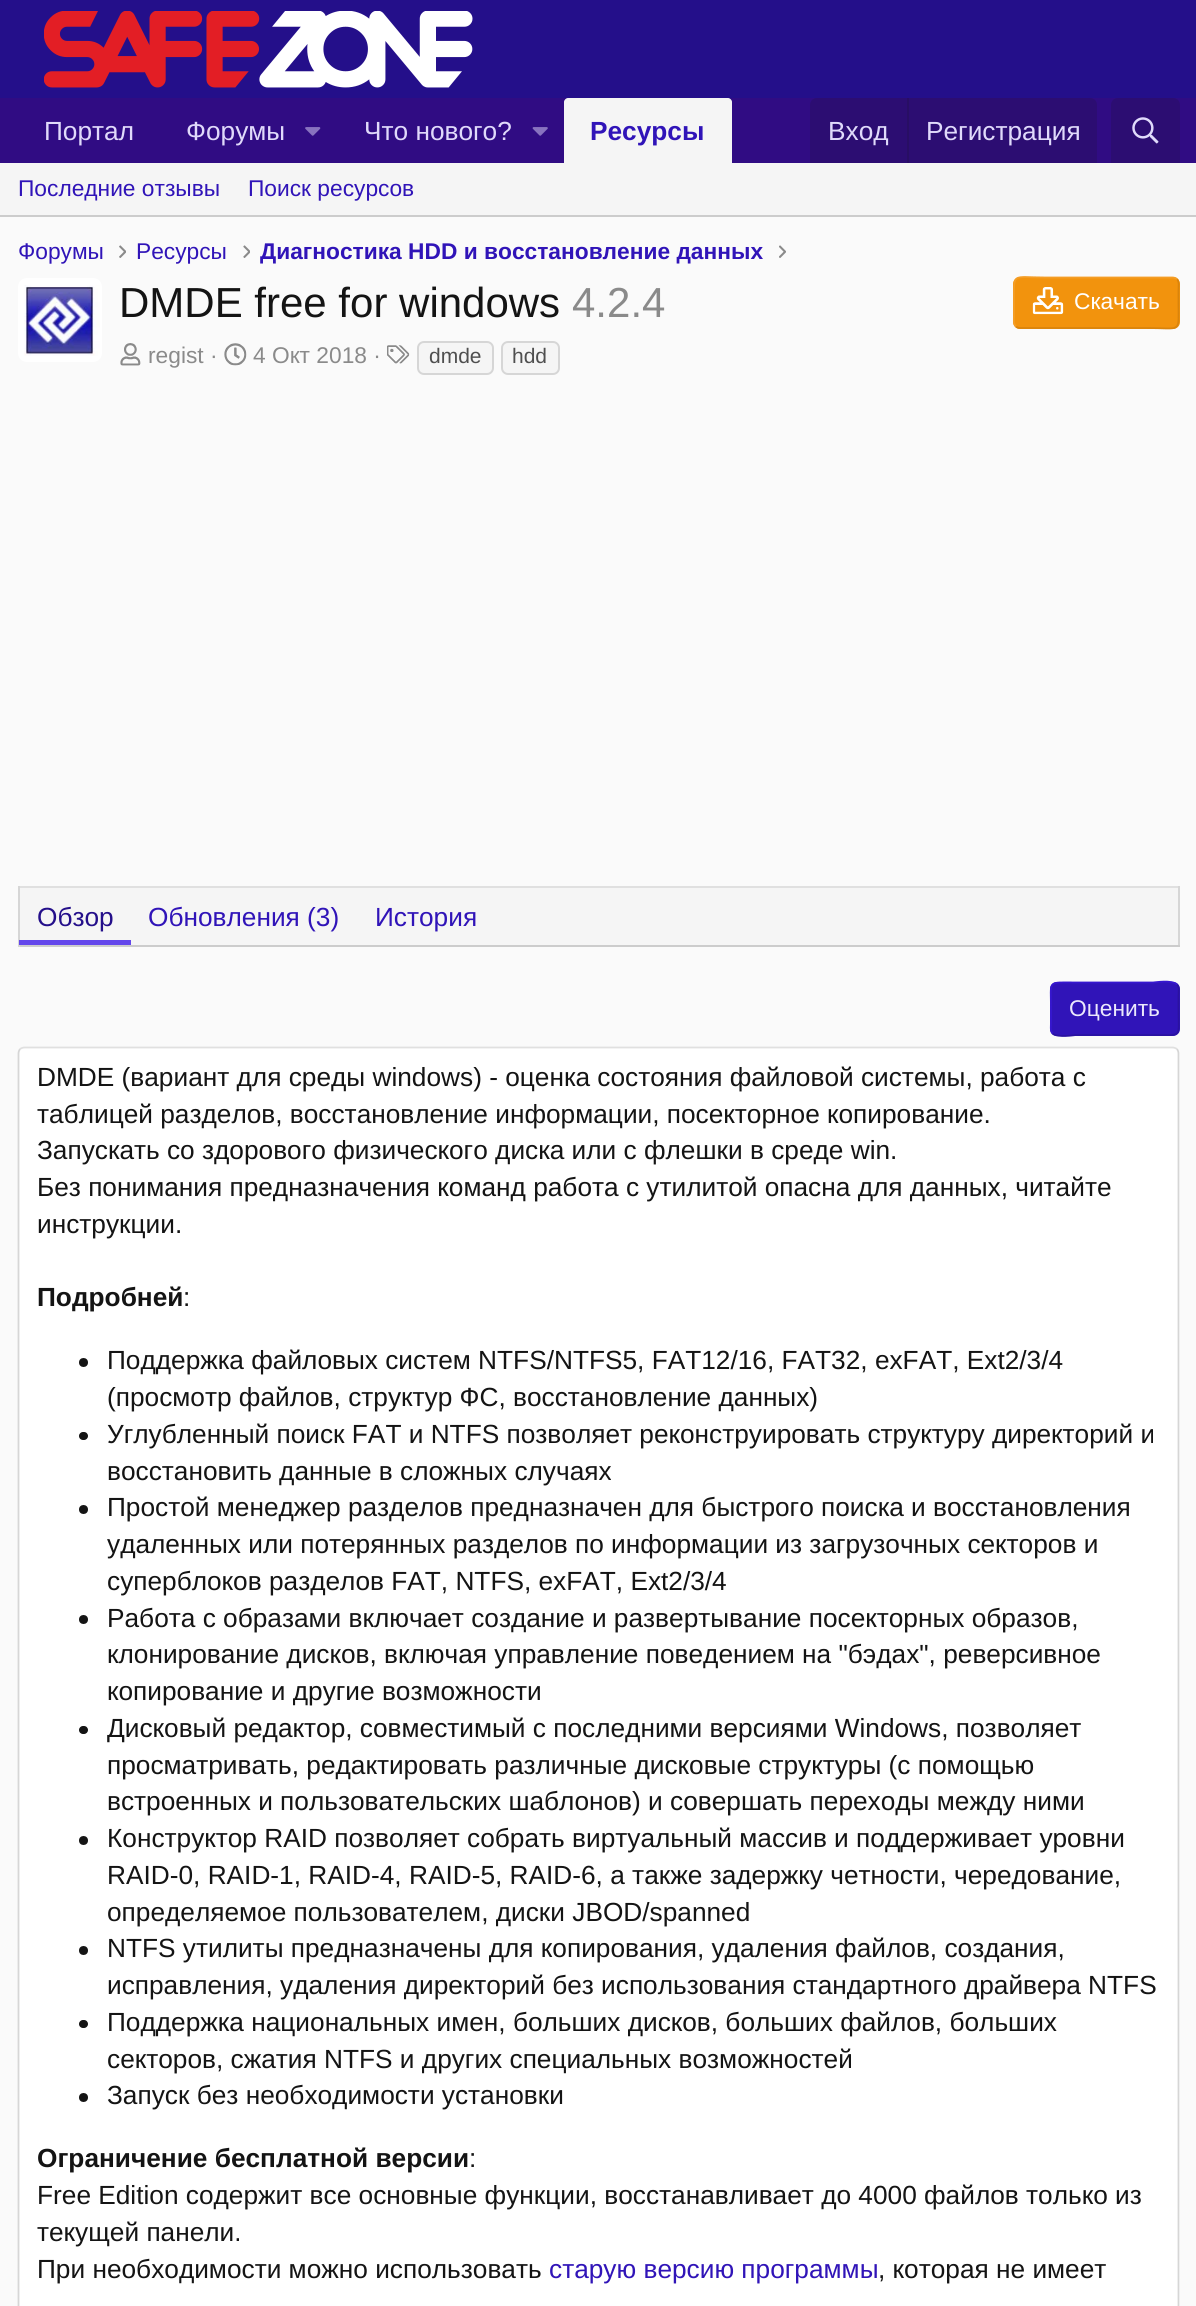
#include <cairo.h>
#include <math.h>
#include <stddef.h>


static void rgb(cairo_t *cr, int r, int g, int b)
{
	cairo_set_source_rgb(cr, r / 255.0, g / 255.0, b / 255.0);
}

static void face(cairo_t *cr, const char *family, double size, int italic, int bold)
{
	cairo_select_font_face(cr, family, italic ? CAIRO_FONT_SLANT_ITALIC : CAIRO_FONT_SLANT_NORMAL,
		bold ? CAIRO_FONT_WEIGHT_BOLD : CAIRO_FONT_WEIGHT_NORMAL);
	cairo_set_font_size(cr, size);
}

static void label(cairo_t *cr, double x, double y, const char *s)
{
	cairo_move_to(cr, x, y);
	cairo_show_text(cr, s);
}

static void rect(cairo_t *cr, double x, double y, double w, double h)
{
	cairo_rectangle(cr, x, y, w, h);
	cairo_fill(cr);
}

static void rrect(cairo_t *cr, double x, double y, double w, double h, double r)
{
	cairo_new_sub_path(cr);
	cairo_arc(cr, x + w - r, y + h - r, r, 0, M_PI / 2);
	cairo_arc(cr, x + r, y + h - r, r, M_PI / 2, M_PI);
	cairo_arc(cr, x + r, y + r, r, M_PI, 1.5 * M_PI);
	cairo_arc(cr, x + w - r, y + r, r, 1.5 * M_PI, 2 * M_PI);
	cairo_close_path(cr);
}

static void image(cairo_t *cr, const char *path, double x, double y, double w, double h)
{
	cairo_surface_t *image = cairo_image_surface_create_from_png(path);
	cairo_save(cr);
	cairo_set_source_surface(cr, image, x, y);
	cairo_rectangle(cr, x, y, w, h);
	cairo_fill(cr);
	cairo_restore(cr);
	cairo_surface_destroy(image);
}

static void draw(cairo_t *cr) {
	rgb(cr, 250, 250, 250);
	cairo_paint(cr);
	rgb(cr, 36, 15, 138);
	rect(cr, 0, 0, 1196, 98);
	image(cr, "image0.png", 44, 11, 429, 77);
	rgb(cr, 48, 12, 131);
	rect(cr, 0, 98, 1196, 65);
	face(cr, "Liberation Sans", 26.25, 0, 0);
	rgb(cr, 224, 218, 251);
	label(cr, 44, 140, "Портал");
	label(cr, 186, 140, "Форумы");
	image(cr, "image1.png", 305, 127, 16, 9);
	label(cr, 364, 140, "Что нового?");
	image(cr, "image2.png", 532, 127, 16, 9);
	rgb(cr, 245, 245, 245);
	cairo_new_path(cr);
	cairo_move_to(cr, 568, 98);
	cairo_line_to(cr, 728, 98);
	cairo_curve_to(cr, 730, 98, 732, 100, 732, 102);
	cairo_line_to(cr, 732, 163);
	cairo_line_to(cr, 564, 163);
	cairo_line_to(cr, 564, 102);
	cairo_curve_to(cr, 564, 100, 566, 98, 568, 98);
	cairo_close_path(cr);
	cairo_fill(cr);
	face(cr, "Liberation Sans", 26.25, 0, 1);
	rgb(cr, 48, 20, 184);
	label(cr, 590, 140, "Ресурсы");
	rgb(cr, 44, 13, 114);
	cairo_new_path(cr);
	cairo_move_to(cr, 817, 98);
	cairo_line_to(cr, 1090, 98);
	cairo_curve_to(cr, 1094, 98, 1097, 101, 1097, 105);
	cairo_line_to(cr, 1097, 163);
	cairo_line_to(cr, 810, 163);
	cairo_line_to(cr, 810, 105);
	cairo_curve_to(cr, 810, 101, 813, 98, 817, 98);
	cairo_close_path(cr);
	cairo_fill(cr);
	face(cr, "Liberation Sans", 26.25, 0, 0);
	rgb(cr, 224, 218, 251);
	label(cr, 828, 140, "Вход");
	rgb(cr, 40, 14, 100);
	rect(cr, 907, 98, 2, 65);
	rgb(cr, 224, 218, 251);
	label(cr, 926, 140, "Регистрация");
	rgb(cr, 44, 13, 114);
	cairo_new_path(cr);
	cairo_move_to(cr, 1118, 98);
	cairo_line_to(cr, 1173, 98);
	cairo_curve_to(cr, 1177, 98, 1180, 101, 1180, 105);
	cairo_line_to(cr, 1180, 163);
	cairo_line_to(cr, 1111, 163);
	cairo_line_to(cr, 1111, 105);
	cairo_curve_to(cr, 1111, 101, 1114, 98, 1118, 98);
	cairo_close_path(cr);
	cairo_fill(cr);
	image(cr, "image3.png", 1132, 117, 27, 27);
	rgb(cr, 245, 245, 245);
	rect(cr, 0, 163, 1196, 52);
	rgb(cr, 204, 204, 204);
	rect(cr, 0, 215, 1196, 2);
	face(cr, "Liberation Sans", 22.75, 0, 0);
	rgb(cr, 48, 20, 184);
	label(cr, 18, 196, "Последние отзывы");
	label(cr, 248, 196, "Поиск ресурсов");
	label(cr, 18, 259, "Форумы");
	image(cr, "image4.png", 119, 245, 7, 13);
	label(cr, 136, 259, "Ресурсы");
	image(cr, "image5.png", 243, 245, 7, 13);
	face(cr, "Liberation Sans", 22.75, 0, 1);
	label(cr, 260, 259, "Диагностика HDD и восстановление данных");
	image(cr, "image6.png", 779, 245, 7, 13);
	rgb(cr, 255, 255, 255);
	rrect(cr, 18, 278, 84, 84, 9);
	cairo_fill(cr);
	image(cr, "image7.png", 24, 285, 76, 71);
	face(cr, "Liberation Sans", 42, 0, 0);
	rgb(cr, 20, 20, 20);
	label(cr, 119, 317, "DMDE free for windows");
	rgb(cr, 138, 138, 138);
	label(cr, 572, 317, "4.2.4");
	rgb(cr, 242, 147, 13);
	rrect(cr, 1013, 277, 167, 52, 7);
	cairo_fill(cr);
	cairo_new_path(cr);
	cairo_move_to(cr, 1177, 279);
	cairo_curve_to(cr, 1179.5, 282, 1178.5, 286.5, 1178.5, 290);
	cairo_line_to(cr, 1178.5, 303);
	cairo_curve_to(cr, 1178.5, 334, 1182, 328, 1147, 328);
	cairo_line_to(cr, 1020, 328);
	cairo_curve_to(cr, 1018.5, 328, 1017, 327.5, 1016, 326.5);
	rgb(cr, 218, 132, 11);
	cairo_set_line_width(cr, 1.8);
	cairo_stroke(cr);
	cairo_new_path(cr);
	cairo_move_to(cr, 1016, 326.5);
	cairo_curve_to(cr, 1013, 323.5, 1014, 319, 1014, 315.5);
	cairo_line_to(cr, 1014, 303);
	cairo_curve_to(cr, 1014, 271.5, 1011, 277.5, 1045.5, 277.5);
	cairo_line_to(cr, 1172.5, 277.5);
	cairo_curve_to(cr, 1174, 277.5, 1175.5, 278, 1177, 279);
	rgb(cr, 244, 157, 37);
	cairo_stroke(cr);
	image(cr, "image8.png", 1032, 287, 32, 28);
	face(cr, "Liberation Sans", 22.75, 0, 0);
	rgb(cr, 255, 255, 255);
	label(cr, 1074, 309, "Скачать");
	image(cr, "image9.png", 120, 343, 21, 23);
	rgb(cr, 138, 138, 138);
	label(cr, 148, 363, "regist ·");
	image(cr, "image10.png", 224, 343, 23, 23);
	label(cr, 253, 363, "4 Окт 2018 ·");
	image(cr, "image11.png", 387, 345, 23, 19);
	rgb(cr, 245, 245, 245);
	rrect(cr, 418, 342, 75, 32, 6);
	cairo_fill_preserve(cr);
	rgb(cr, 214, 214, 214);
	cairo_set_line_width(cr, 2);
	cairo_stroke(cr);
	face(cr, "Liberation Sans", 21, 0, 0);
	rgb(cr, 79, 79, 79);
	label(cr, 429, 363, "dmde");
	rgb(cr, 245, 245, 245);
	rrect(cr, 502, 342, 57, 32, 6);
	cairo_fill_preserve(cr);
	rgb(cr, 214, 214, 214);
	cairo_stroke(cr);
	rgb(cr, 79, 79, 79);
	label(cr, 512, 363, "hdd");
	rgb(cr, 245, 245, 245);
	rect(cr, 20, 888, 1158, 57);
	rgb(cr, 224, 224, 224);
	rect(cr, 18, 886, 1162, 2);
	rgb(cr, 214, 214, 214);
	rect(cr, 1178, 886, 2, 61);
	rgb(cr, 204, 204, 204);
	rect(cr, 18, 945, 1162, 2);
	rgb(cr, 214, 214, 214);
	rect(cr, 18, 886, 2, 61);
	rgb(cr, 99, 71, 235);
	rect(cr, 19, 940, 112, 5);
	face(cr, "Liberation Sans", 26.25, 0, 0);
	rgb(cr, 36, 15, 138);
	label(cr, 37, 926, "Обзор");
	rgb(cr, 48, 20, 184);
	label(cr, 148, 926, "Обновления (3)");
	label(cr, 375, 926, "История");
	rrect(cr, 1050, 982, 130, 54, 7);
	cairo_fill(cr);
	cairo_new_path(cr);
	cairo_move_to(cr, 1177, 984.5);
	cairo_curve_to(cr, 1179.5, 987, 1178.5, 992, 1178.5, 995.5);
	cairo_line_to(cr, 1178.5, 1009);
	cairo_curve_to(cr, 1178.5, 1038.5, 1183, 1035, 1153, 1035);
	cairo_line_to(cr, 1076, 1035);
	cairo_curve_to(cr, 1075, 1035, 1057.5, 1038, 1052.5, 1033.5);
	rgb(cr, 42, 18, 161);
	cairo_set_line_width(cr, 1.8);
	cairo_stroke(cr);
	cairo_new_path(cr);
	cairo_move_to(cr, 1052.5, 1033.5);
	cairo_curve_to(cr, 1050, 1030.5, 1051, 1025.5, 1051, 1022.5);
	cairo_line_to(cr, 1051, 1009);
	cairo_curve_to(cr, 1051, 979.5, 1046.5, 982.5, 1076, 982.5);
	cairo_line_to(cr, 1153, 982.5);
	cairo_curve_to(cr, 1154.5, 982.5, 1172, 979.5, 1177, 984.5);
	rgb(cr, 54, 23, 207);
	cairo_stroke(cr);
	face(cr, "Liberation Sans", 22.75, 0, 0);
	rgb(cr, 235, 232, 252);
	label(cr, 1069, 1016, "Оценить");
	rgb(cr, 255, 255, 255);
	rrect(cr, 18, 1047, 1162, 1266, 7);
	cairo_fill(cr);
	cairo_new_path(cr);
	cairo_move_to(cr, 20, 1049);
	cairo_curve_to(cr, 21.5, 1048, 23, 1047.5, 24.5, 1047.5);
	cairo_line_to(cr, 1172.5, 1047.5);
	cairo_curve_to(cr, 1174, 1047.5, 1175.5, 1048, 1177, 1049);
	rgb(cr, 224, 224, 224);
	cairo_stroke(cr);
	cairo_new_path(cr);
	cairo_move_to(cr, 1177, 1049);
	cairo_curve_to(cr, 1178, 1050.5, 1178.5, 1052, 1178.5, 1053.5);
	cairo_line_to(cr, 1178.5, 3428);
	cairo_curve_to(cr, 1178.5, 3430, 1178, 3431.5, 1177, 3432.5);
	rgb(cr, 214, 214, 214);
	cairo_stroke(cr);
	cairo_new_path(cr);
	cairo_move_to(cr, 20, 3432.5);
	cairo_curve_to(cr, 19, 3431.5, 18.5, 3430, 18.5, 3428);
	cairo_line_to(cr, 18.5, 1053.5);
	cairo_curve_to(cr, 18.5, 1052, 19, 1050.5, 20, 1049);
	cairo_stroke(cr);
	face(cr, "Liberation Sans", 26.25, 0, 0);
	rgb(cr, 20, 20, 20);
	label(cr, 37, 1086, "DMDE (вариант для среды windows) - оценка состояния файловой системы, работа с");
	label(cr, 37, 1123, "таблицей разделов, восстановление информации, посекторное копирование.");
	label(cr, 37, 1159, "Запускать со здорового физического диска или с флешки в среде win.");
	label(cr, 37, 1196, "Без понимания предназначения команд работа с утилитой опасна для данных, читайте");
	label(cr, 37, 1233, "инструкции.");
	face(cr, "Liberation Sans", 26.25, 0, 1);
	label(cr, 37, 1306, "Подробней");
	face(cr, "Liberation Sans", 26.25, 0, 0);
	label(cr, 183, 1306, ":");
	cairo_new_path(cr);
	cairo_arc(cr, 83.5, 1362.5, 4.5, 0, 2 * M_PI);
	cairo_fill(cr);
	label(cr, 107, 1369, "Поддержка файловых систем NTFS/NTFS5, FAT12/16, FAT32, exFAT, Ext2/3/4");
	label(cr, 107, 1406, "(просмотр файлов, структур ФС, восстановление данных)");
	rrect(cr, 79, 1432, 9, 8, 4);
	cairo_fill(cr);
	label(cr, 107, 1443, "Углубленный поиск FAT и NTFS позволяет реконструировать структуру директорий и");
	label(cr, 107, 1480, "восстановить данные в сложных случаях");
	cairo_new_path(cr);
	cairo_arc(cr, 83.5, 1509.5, 4.5, 0, 2 * M_PI);
	cairo_fill(cr);
	label(cr, 107, 1516, "Простой менеджер разделов предназначен для быстрого поиска и восстановления");
	label(cr, 107, 1553, "удаленных или потерянных разделов по информации из загрузочных секторов и");
	label(cr, 107, 1590, "суперблоков разделов FAT, NTFS, exFAT, Ext2/3/4");
	cairo_new_path(cr);
	cairo_arc(cr, 83.5, 1619.5, 4.5, 0, 2 * M_PI);
	cairo_fill(cr);
	label(cr, 107, 1627, "Работа с образами включает создание и развертывание посекторных образов,");
	label(cr, 107, 1663, "клонирование дисков, включая управление поведением на \"бэдах\", реверсивное");
	label(cr, 107, 1700, "копирование и другие возможности");
	rrect(cr, 79, 1726, 9, 8, 4);
	cairo_fill(cr);
	label(cr, 107, 1737, "Дисковый редактор, совместимый с последними версиями Windows, позволяет");
	label(cr, 107, 1774, "просматривать, редактировать различные дисковые структуры (с помощью");
	label(cr, 107, 1810, "встроенных и пользовательских шаблонов) и совершать переходы между ними");
	cairo_new_path(cr);
	cairo_arc(cr, 83.5, 1840.5, 4.5, 0, 2 * M_PI);
	cairo_fill(cr);
	label(cr, 107, 1847, "Конструктор RAID позволяет собрать виртуальный массив и поддерживает уровни");
	label(cr, 107, 1884, "RAID-0, RAID-1, RAID-4, RAID-5, RAID-6, а также задержку четности, чередование,");
	label(cr, 107, 1921, "определяемое пользователем, диски JBOD/spanned");
	cairo_new_path(cr);
	cairo_arc(cr, 83.5, 1950.5, 4.5, 0, 2 * M_PI);
	cairo_fill(cr);
	label(cr, 107, 1957, "NTFS утилиты предназначены для копирования, удаления файлов, создания,");
	label(cr, 107, 1994, "исправления, удаления директорий без использования стандартного драйвера NTFS");
	rrect(cr, 79, 2020, 9, 8, 4);
	cairo_fill(cr);
	label(cr, 107, 2031, "Поддержка национальных имен, больших дисков, больших файлов, больших");
	label(cr, 107, 2068, "секторов, сжатия NTFS и других специальных возможностей");
	cairo_new_path(cr);
	cairo_arc(cr, 83.5, 2097.5, 4.5, 0, 2 * M_PI);
	cairo_fill(cr);
	label(cr, 107, 2104, "Запуск без необходимости установки");
	face(cr, "Liberation Sans", 26.25, 0, 1);
	label(cr, 37, 2167, "Ограничение бесплатной версии");
	face(cr, "Liberation Sans", 26.25, 0, 0);
	label(cr, 469, 2167, ":");
	label(cr, 37, 2204, "Free Edition содержит все основные функции, восстанавливает до 4000 файлов только из");
	label(cr, 37, 2241, "текущей панели.");
	label(cr, 37, 2278, "При необходимости можно использовать");
	rgb(cr, 48, 20, 184);
	label(cr, 549, 2278, "старую версию программы");
	rgb(cr, 20, 20, 20);
	label(cr, 878, 2278, ", которая не имеет");
}

int main(void) {
	cairo_surface_t *surface = cairo_image_surface_create(CAIRO_FORMAT_RGB24, 1196, 2306);
	cairo_t *cr = cairo_create(surface);
	cairo_font_options_t *options = cairo_font_options_create();
	cairo_font_options_set_hint_metrics(options, CAIRO_HINT_METRICS_OFF);
	cairo_font_options_set_hint_style(options, CAIRO_HINT_STYLE_NONE);
	cairo_set_font_options(cr, options);
	cairo_set_miter_limit(cr, 4);
	draw(cr);
	cairo_surface_write_to_png(surface, "render.png");
	cairo_font_options_destroy(options);
	cairo_destroy(cr);
	cairo_surface_destroy(surface);
	return 0;
}
